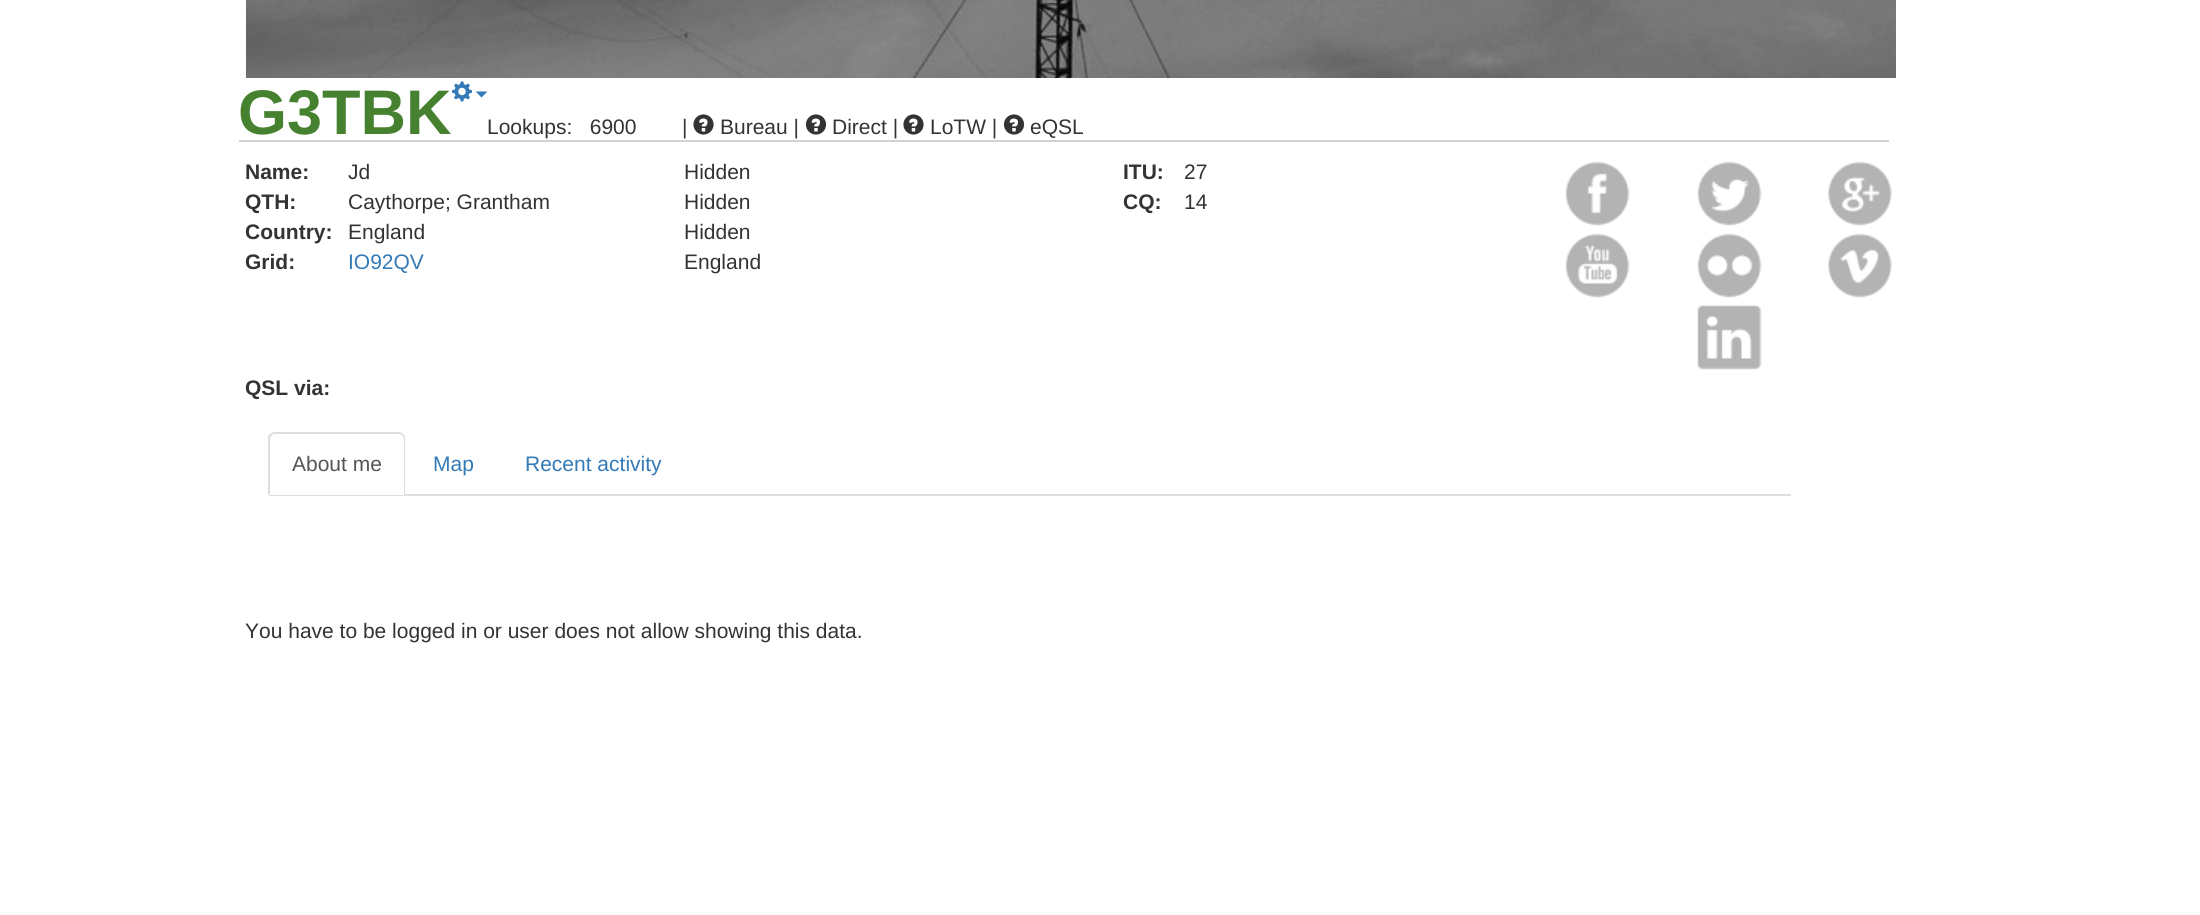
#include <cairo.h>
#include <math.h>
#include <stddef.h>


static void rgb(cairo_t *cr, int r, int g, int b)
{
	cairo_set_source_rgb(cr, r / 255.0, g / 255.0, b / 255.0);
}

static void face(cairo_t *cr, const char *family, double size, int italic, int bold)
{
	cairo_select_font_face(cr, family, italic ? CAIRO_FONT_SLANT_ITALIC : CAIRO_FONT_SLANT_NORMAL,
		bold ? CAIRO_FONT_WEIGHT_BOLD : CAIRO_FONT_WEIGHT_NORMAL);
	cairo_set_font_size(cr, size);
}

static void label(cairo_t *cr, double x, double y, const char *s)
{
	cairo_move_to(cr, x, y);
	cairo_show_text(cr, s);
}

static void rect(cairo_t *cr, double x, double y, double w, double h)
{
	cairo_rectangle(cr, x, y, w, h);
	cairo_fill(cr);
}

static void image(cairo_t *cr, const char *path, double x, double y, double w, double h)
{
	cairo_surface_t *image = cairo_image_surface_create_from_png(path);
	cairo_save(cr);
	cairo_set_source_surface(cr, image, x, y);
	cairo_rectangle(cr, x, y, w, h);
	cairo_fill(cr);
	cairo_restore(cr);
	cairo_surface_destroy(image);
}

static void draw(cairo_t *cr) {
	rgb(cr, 255, 255, 255);
	cairo_paint(cr);
	image(cr, "image0.png", 246, 0, 1650, 78);
	rgb(cr, 210, 210, 210);
	rect(cr, 239, 140, 1650, 2);
	face(cr, "Liberation Sans", 63, 0, 1);
	rgb(cr, 69, 129, 47);
	label(cr, 238, 134, "G3TBK");
	image(cr, "image1.png", 451, 81, 22, 21);
	rgb(cr, 51, 122, 183);
	cairo_new_path(cr);
	cairo_move_to(cr, 475.5, 91.5);
	cairo_line_to(cr, 487.5, 91.5);
	cairo_line_to(cr, 481.5, 97.5);
	cairo_close_path(cr);
	cairo_fill(cr);
	face(cr, "Liberation Sans", 21, 0, 0);
	rgb(cr, 51, 51, 51);
	label(cr, 487, 134, "Lookups:   6900");
	label(cr, 682, 134, "|");
	image(cr, "image2.png", 693, 114, 21, 21);
	label(cr, 720, 134, "Bureau |");
	image(cr, "image3.png", 805, 114, 22, 21);
	label(cr, 832, 134, "Direct |");
	image(cr, "image2.png", 903, 114, 21, 21);
	label(cr, 930, 134, "LoTW |");
	image(cr, "image3.png", 1003, 114, 22, 21);
	label(cr, 1030, 134, "eQSL");
	face(cr, "Liberation Sans", 21, 0, 1);
	label(cr, 245, 179, "Name:");
	face(cr, "Liberation Sans", 21, 0, 0);
	label(cr, 348, 179, "Jd");
	face(cr, "Liberation Sans", 21, 0, 1);
	label(cr, 245, 209, "QTH:");
	face(cr, "Liberation Sans", 21, 0, 0);
	label(cr, 348, 209, "Caythorpe; Grantham");
	face(cr, "Liberation Sans", 21, 0, 1);
	label(cr, 245, 239, "Country:");
	face(cr, "Liberation Sans", 21, 0, 0);
	label(cr, 348, 239, "England");
	face(cr, "Liberation Sans", 21, 0, 1);
	label(cr, 245, 269, "Grid:");
	face(cr, "Liberation Sans", 21, 0, 0);
	rgb(cr, 51, 122, 183);
	label(cr, 348, 269, "IO92QV");
	rgb(cr, 51, 51, 51);
	label(cr, 684, 179, "Hidden");
	label(cr, 684, 209, "Hidden");
	label(cr, 684, 239, "Hidden");
	label(cr, 684, 269, "England");
	face(cr, "Liberation Sans", 21, 0, 1);
	label(cr, 1123, 179, "ITU:");
	face(cr, "Liberation Sans", 21, 0, 0);
	label(cr, 1184, 179, "27");
	face(cr, "Liberation Sans", 21, 0, 1);
	label(cr, 1123, 209, "CQ:");
	face(cr, "Liberation Sans", 21, 0, 0);
	label(cr, 1184, 209, "14");
	image(cr, "image4.png", 1565, 161, 65, 65);
	image(cr, "image5.png", 1697, 161, 65, 65);
	image(cr, "image6.png", 1828, 161, 64, 65);
	image(cr, "image7.png", 1565, 233, 65, 65);
	image(cr, "image8.png", 1697, 233, 65, 65);
	image(cr, "image9.png", 1828, 233, 64, 65);
	image(cr, "image10.png", 1697, 304, 65, 66);
	face(cr, "Liberation Sans", 21, 0, 1);
	label(cr, 245, 395, "QSL via:");
	rgb(cr, 221, 221, 221);
	rect(cr, 269, 494, 1522, 2);
	rgb(cr, 255, 255, 255);
	cairo_new_path(cr);
	cairo_move_to(cr, 275, 432);
	cairo_line_to(cr, 399, 432);
	cairo_curve_to(cr, 402.5, 432, 405, 434.5, 405, 438);
	cairo_line_to(cr, 405, 495);
	cairo_line_to(cr, 269, 495);
	cairo_line_to(cr, 269, 438);
	cairo_curve_to(cr, 269, 434.5, 271.5, 432, 275, 432);
	cairo_close_path(cr);
	cairo_fill(cr);
	rgb(cr, 221, 221, 221);
	cairo_new_path(cr);
	cairo_move_to(cr, 274, 432);
	cairo_curve_to(cr, 273, 432, 271, 433, 270, 434);
	cairo_line_to(cr, 272, 435);
	cairo_line_to(cr, 274, 434);
	cairo_line_to(cr, 399, 434);
	cairo_line_to(cr, 402, 435);
	cairo_line_to(cr, 403, 434);
	cairo_curve_to(cr, 402, 433, 400, 432, 399, 432);
	cairo_close_path(cr);
	cairo_fill(cr);
	cairo_new_path(cr);
	cairo_move_to(cr, 405, 495);
	cairo_line_to(cr, 405, 438);
	cairo_curve_to(cr, 405, 436, 404, 435, 403, 434);
	cairo_line_to(cr, 402, 435);
	cairo_line_to(cr, 404, 438);
	cairo_line_to(cr, 404, 494);
	cairo_close_path(cr);
	cairo_fill(cr);
	cairo_new_path(cr);
	cairo_move_to(cr, 268, 495);
	cairo_line_to(cr, 268, 436);
	cairo_line_to(cr, 270, 434);
	cairo_line_to(cr, 272, 435);
	cairo_line_to(cr, 270, 438);
	cairo_line_to(cr, 270, 494);
	cairo_close_path(cr);
	cairo_fill(cr);
	face(cr, "Liberation Sans", 21, 0, 0);
	rgb(cr, 85, 85, 85);
	label(cr, 292, 471, "About me");
	rgb(cr, 51, 122, 183);
	label(cr, 433, 471, "Map");
	label(cr, 525, 471, "Recent activity");
	rgb(cr, 51, 51, 51);
	label(cr, 245, 638, "You have to be logged in or user does not allow showing this data.");
}

int main(void) {
	cairo_surface_t *surface = cairo_image_surface_create(CAIRO_FORMAT_RGB24, 2200, 915);
	cairo_t *cr = cairo_create(surface);
	cairo_font_options_t *options = cairo_font_options_create();
	cairo_font_options_set_hint_metrics(options, CAIRO_HINT_METRICS_OFF);
	cairo_font_options_set_hint_style(options, CAIRO_HINT_STYLE_NONE);
	cairo_set_font_options(cr, options);
	cairo_set_miter_limit(cr, 4);
	draw(cr);
	cairo_surface_write_to_png(surface, "render.png");
	cairo_font_options_destroy(options);
	cairo_destroy(cr);
	cairo_surface_destroy(surface);
	return 0;
}
